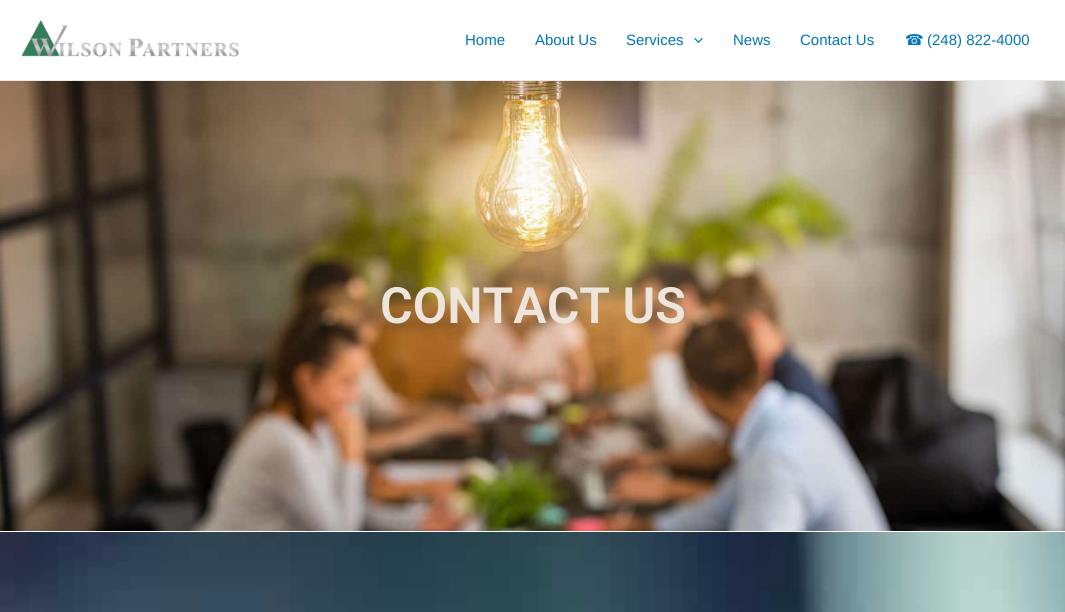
#include <cairo.h>
#include <math.h>
#include <stddef.h>


static void rgb(cairo_t *cr, int r, int g, int b)
{
	cairo_set_source_rgb(cr, r / 255.0, g / 255.0, b / 255.0);
}

static void face(cairo_t *cr, const char *family, double size, int italic, int bold)
{
	cairo_select_font_face(cr, family, italic ? CAIRO_FONT_SLANT_ITALIC : CAIRO_FONT_SLANT_NORMAL,
		bold ? CAIRO_FONT_WEIGHT_BOLD : CAIRO_FONT_WEIGHT_NORMAL);
	cairo_set_font_size(cr, size);
}

static void label(cairo_t *cr, double x, double y, const char *s)
{
	cairo_move_to(cr, x, y);
	cairo_show_text(cr, s);
}

static void rect(cairo_t *cr, double x, double y, double w, double h)
{
	cairo_rectangle(cr, x, y, w, h);
	cairo_fill(cr);
}

static void image(cairo_t *cr, const char *path, double x, double y, double w, double h)
{
	cairo_surface_t *image = cairo_image_surface_create_from_png(path);
	cairo_save(cr);
	cairo_set_source_surface(cr, image, x, y);
	cairo_rectangle(cr, x, y, w, h);
	cairo_fill(cr);
	cairo_restore(cr);
	cairo_surface_destroy(image);
}

static void draw(cairo_t *cr) {
	rgb(cr, 255, 255, 255);
	cairo_paint(cr);
	rgb(cr, 234, 234, 234);
	rect(cr, 0, 80, 1065, 1);
	image(cr, "image0.png", 21, 20, 218, 37);
	face(cr, "Liberation Sans", 15, 0, 0);
	rgb(cr, 2, 116, 190);
	label(cr, 465, 45, "Home");
	label(cr, 535, 45, "About Us");
	label(cr, 626, 45, "Services");
	image(cr, "image1.png", 694, 38, 9, 5);
	label(cr, 733, 45, "News");
	label(cr, 800, 45, "Contact Us");
	face(cr, "DejaVu Sans", 15, 0, 0);
	label(cr, 905, 45, "☎");
	face(cr, "Liberation Sans", 15, 0, 0);
	label(cr, 927, 45, "(248) 822-4000");
	image(cr, "image2.png", 0, 81, 1065, 450);
	face(cr, "Roboto SemiBold", 50, 0, 0);
	rgb(cr, 237, 229, 219);
	label(cr, 380, 323, "CONTACT US");
	image(cr, "image3.png", 0, 532, 1065, 80);
}

int main(void) {
	cairo_surface_t *surface = cairo_image_surface_create(CAIRO_FORMAT_RGB24, 1065, 612);
	cairo_t *cr = cairo_create(surface);
	cairo_font_options_t *options = cairo_font_options_create();
	cairo_font_options_set_hint_metrics(options, CAIRO_HINT_METRICS_OFF);
	cairo_font_options_set_hint_style(options, CAIRO_HINT_STYLE_NONE);
	cairo_set_font_options(cr, options);
	cairo_set_miter_limit(cr, 4);
	draw(cr);
	cairo_surface_write_to_png(surface, "render.png");
	cairo_font_options_destroy(options);
	cairo_destroy(cr);
	cairo_surface_destroy(surface);
	return 0;
}
